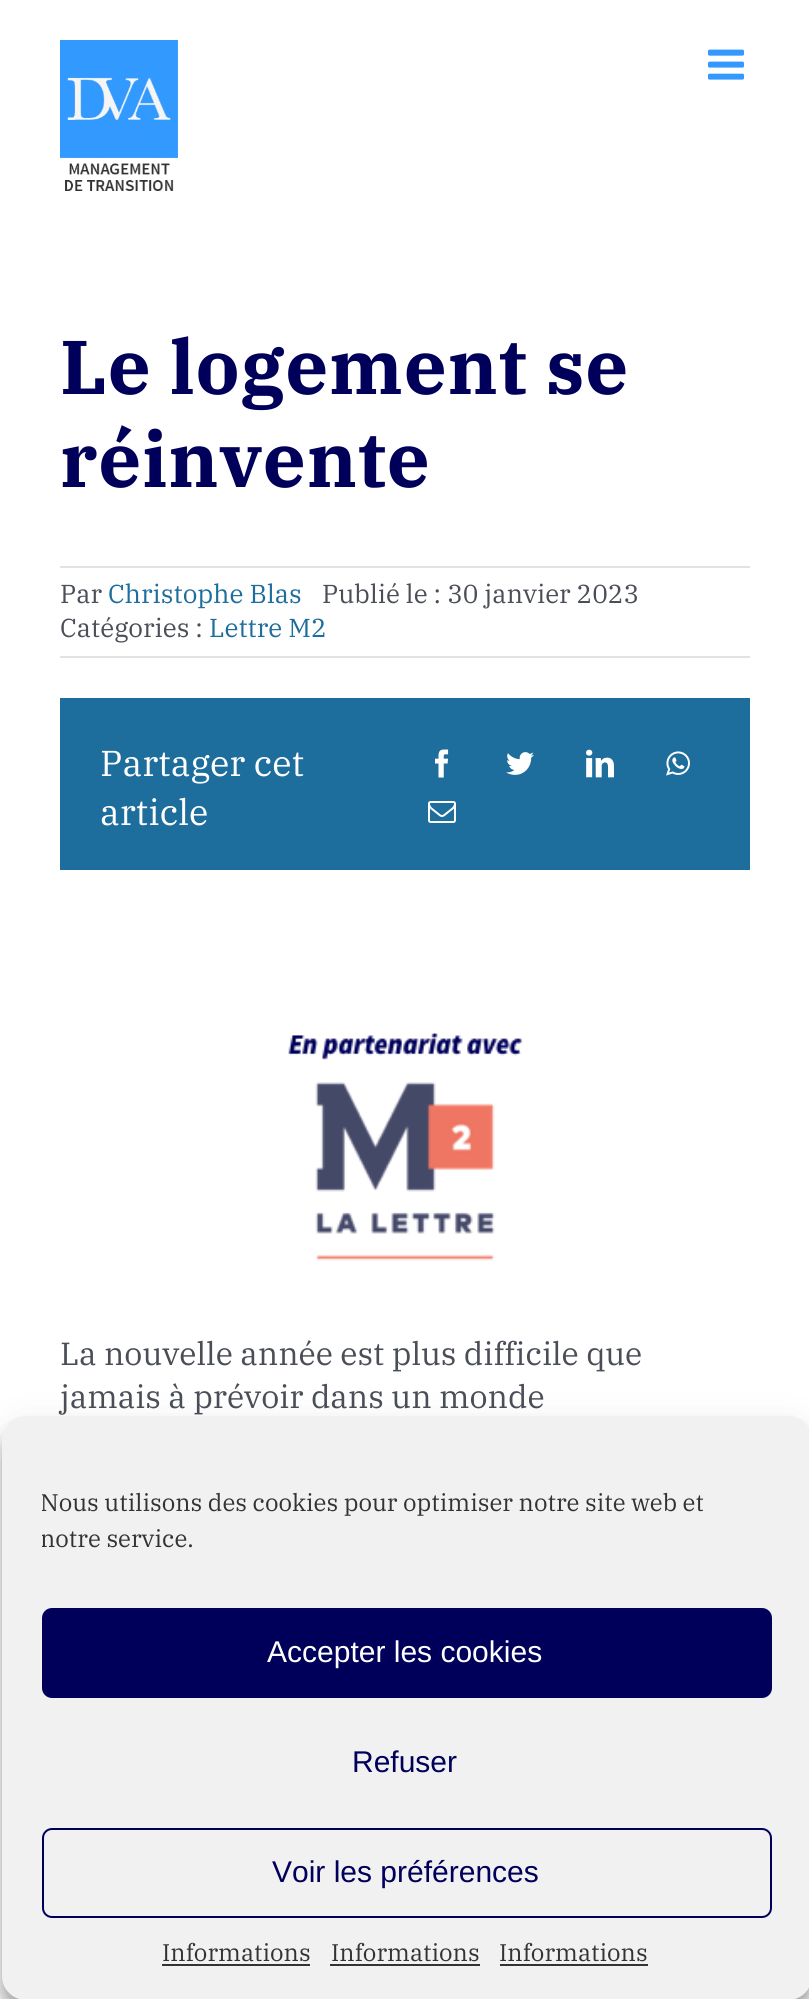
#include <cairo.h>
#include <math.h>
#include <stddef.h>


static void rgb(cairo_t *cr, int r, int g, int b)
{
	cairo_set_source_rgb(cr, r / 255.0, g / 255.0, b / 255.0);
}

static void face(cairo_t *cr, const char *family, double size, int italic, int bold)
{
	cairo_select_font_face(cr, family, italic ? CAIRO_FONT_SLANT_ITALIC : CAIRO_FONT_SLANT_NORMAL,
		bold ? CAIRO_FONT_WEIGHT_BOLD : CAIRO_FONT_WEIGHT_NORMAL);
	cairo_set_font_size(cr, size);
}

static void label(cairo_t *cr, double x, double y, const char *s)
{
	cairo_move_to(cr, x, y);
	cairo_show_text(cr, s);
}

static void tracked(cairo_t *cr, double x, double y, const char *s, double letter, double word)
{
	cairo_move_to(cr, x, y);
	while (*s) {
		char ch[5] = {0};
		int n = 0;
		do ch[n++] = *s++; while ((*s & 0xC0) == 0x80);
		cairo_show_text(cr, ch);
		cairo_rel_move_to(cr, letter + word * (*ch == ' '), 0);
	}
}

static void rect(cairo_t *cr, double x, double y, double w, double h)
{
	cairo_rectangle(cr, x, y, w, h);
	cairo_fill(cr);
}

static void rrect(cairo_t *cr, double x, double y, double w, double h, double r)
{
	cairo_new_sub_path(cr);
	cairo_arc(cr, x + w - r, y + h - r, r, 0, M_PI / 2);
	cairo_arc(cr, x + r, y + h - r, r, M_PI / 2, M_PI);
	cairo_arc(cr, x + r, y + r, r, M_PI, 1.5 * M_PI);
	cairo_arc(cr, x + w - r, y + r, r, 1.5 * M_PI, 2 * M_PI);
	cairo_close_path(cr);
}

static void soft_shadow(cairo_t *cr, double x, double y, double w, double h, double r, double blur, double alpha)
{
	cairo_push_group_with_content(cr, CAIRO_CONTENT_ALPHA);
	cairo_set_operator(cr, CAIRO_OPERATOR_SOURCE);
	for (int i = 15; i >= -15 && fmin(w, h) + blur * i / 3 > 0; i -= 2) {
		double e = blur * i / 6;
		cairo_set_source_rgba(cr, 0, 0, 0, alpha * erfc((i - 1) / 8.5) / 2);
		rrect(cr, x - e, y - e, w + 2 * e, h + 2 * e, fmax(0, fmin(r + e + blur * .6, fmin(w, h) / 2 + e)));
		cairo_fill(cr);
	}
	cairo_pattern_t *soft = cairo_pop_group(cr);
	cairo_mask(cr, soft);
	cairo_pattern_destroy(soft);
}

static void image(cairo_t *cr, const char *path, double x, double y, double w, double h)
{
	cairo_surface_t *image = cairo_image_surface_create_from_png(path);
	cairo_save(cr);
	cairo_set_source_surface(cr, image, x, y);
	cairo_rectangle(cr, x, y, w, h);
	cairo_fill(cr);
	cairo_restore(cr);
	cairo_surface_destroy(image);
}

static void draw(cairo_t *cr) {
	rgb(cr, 255, 255, 255);
	cairo_paint(cr);
	image(cr, "image0.png", 60, 40, 118, 151);
	image(cr, "image1.png", 708, 49, 36, 31);
	face(cr, "IBM Plex Serif", 76, 0, 1);
	rgb(cr, 0, 0, 91);
	tracked(cr, 60, 394, "Le logement se", 0.75, 0);
	tracked(cr, 60, 487, "réinvente", 0.75, 0);
	rgb(cr, 226, 226, 226);
	rect(cr, 60, 566, 690, 2);
	rect(cr, 60, 656, 690, 2);
	face(cr, "IBM Plex Serif", 26, 0, 0);
	rgb(cr, 74, 78, 87);
	label(cr, 60, 603, "Par");
	rgb(cr, 29, 109, 157);
	label(cr, 108, 603, "Christophe Blas");
	rgb(cr, 74, 78, 87);
	label(cr, 322, 603, "Publié le : 30 janvier 2023");
	label(cr, 60, 637, "Catégories :");
	rgb(cr, 29, 109, 157);
	label(cr, 209, 637, "Lettre M2");
	rect(cr, 60, 698, 690, 172);
	face(cr, "IBM Plex Serif", 36, 0, 0);
	rgb(cr, 255, 255, 255);
	label(cr, 100, 776, "Partager cet");
	label(cr, 100, 825, "article");
	image(cr, "image2.png", 435, 749, 14, 29);
	image(cr, "image3.png", 506, 752, 28, 23);
	image(cr, "image4.png", 586, 749, 28, 29);
	image(cr, "image5.png", 666, 751, 24, 25);
	image(cr, "image6.png", 428, 801, 28, 22);
	image(cr, "image7.png", 288, 1032, 235, 229);
	face(cr, "IBM Plex Serif", 32, 0, 0);
	rgb(cr, 74, 78, 87);
	label(cr, 60, 1365, "La nouvelle année est plus difficile que");
	label(cr, 60, 1408, "jamais à prévoir dans un monde");
	rgb(cr, 0, 0, 0);
	soft_shadow(cr, 2, 1428, 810, 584, 24, 6, 0.23);
	soft_shadow(cr, 2, 1436, 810, 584, 24, 20, 0.19);
	rgb(cr, 241, 241, 241);
	rrect(cr, 2, 1416, 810, 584, 24);
	cairo_fill(cr);
	cairo_save(cr);
	cairo_rectangle(cr, 42, 1486, 730, 82);
	cairo_clip(cr);
	face(cr, "IBM Plex Serif", 24, 0, 0);
	rgb(cr, 51, 51, 51);
	label(cr, 40, 1511, "Nous utilisons des cookies pour optimiser notre site web et");
	label(cr, 40, 1547, "notre service.");
	cairo_restore(cr);
	rgb(cr, 0, 0, 91);
	rrect(cr, 43, 1609, 728, 88, 9);
	cairo_fill_preserve(cr);
	cairo_stroke(cr);
	face(cr, "Liberation Sans", 30, 0, 0);
	rgb(cr, 255, 255, 255);
	label(cr, 267, 1662, "Accepter les cookies");
	rgb(cr, 0, 0, 91);
	label(cr, 352, 1772, "Refuser");
	rrect(cr, 43, 1829, 728, 88, 9);
	cairo_stroke(cr);
	label(cr, 272, 1882, "Voir les préférences");
	face(cr, "IBM Plex Serif", 24, 0, 0);
	rgb(cr, 51, 51, 51);
	label(cr, 162, 1961, "Informations");
	rect(cr, 162, 1964, 148, 2);
	label(cr, 331, 1961, "Informations");
	rect(cr, 330, 1964, 150, 2);
	label(cr, 499, 1961, "Informations");
	rect(cr, 500, 1964, 148, 2);
}

int main(void) {
	cairo_surface_t *surface = cairo_image_surface_create(CAIRO_FORMAT_RGB24, 809, 1999);
	cairo_t *cr = cairo_create(surface);
	cairo_font_options_t *options = cairo_font_options_create();
	cairo_font_options_set_hint_metrics(options, CAIRO_HINT_METRICS_OFF);
	cairo_font_options_set_hint_style(options, CAIRO_HINT_STYLE_NONE);
	cairo_set_font_options(cr, options);
	cairo_set_miter_limit(cr, 4);
	draw(cr);
	cairo_surface_write_to_png(surface, "render.png");
	cairo_font_options_destroy(options);
	cairo_destroy(cr);
	cairo_surface_destroy(surface);
	return 0;
}
